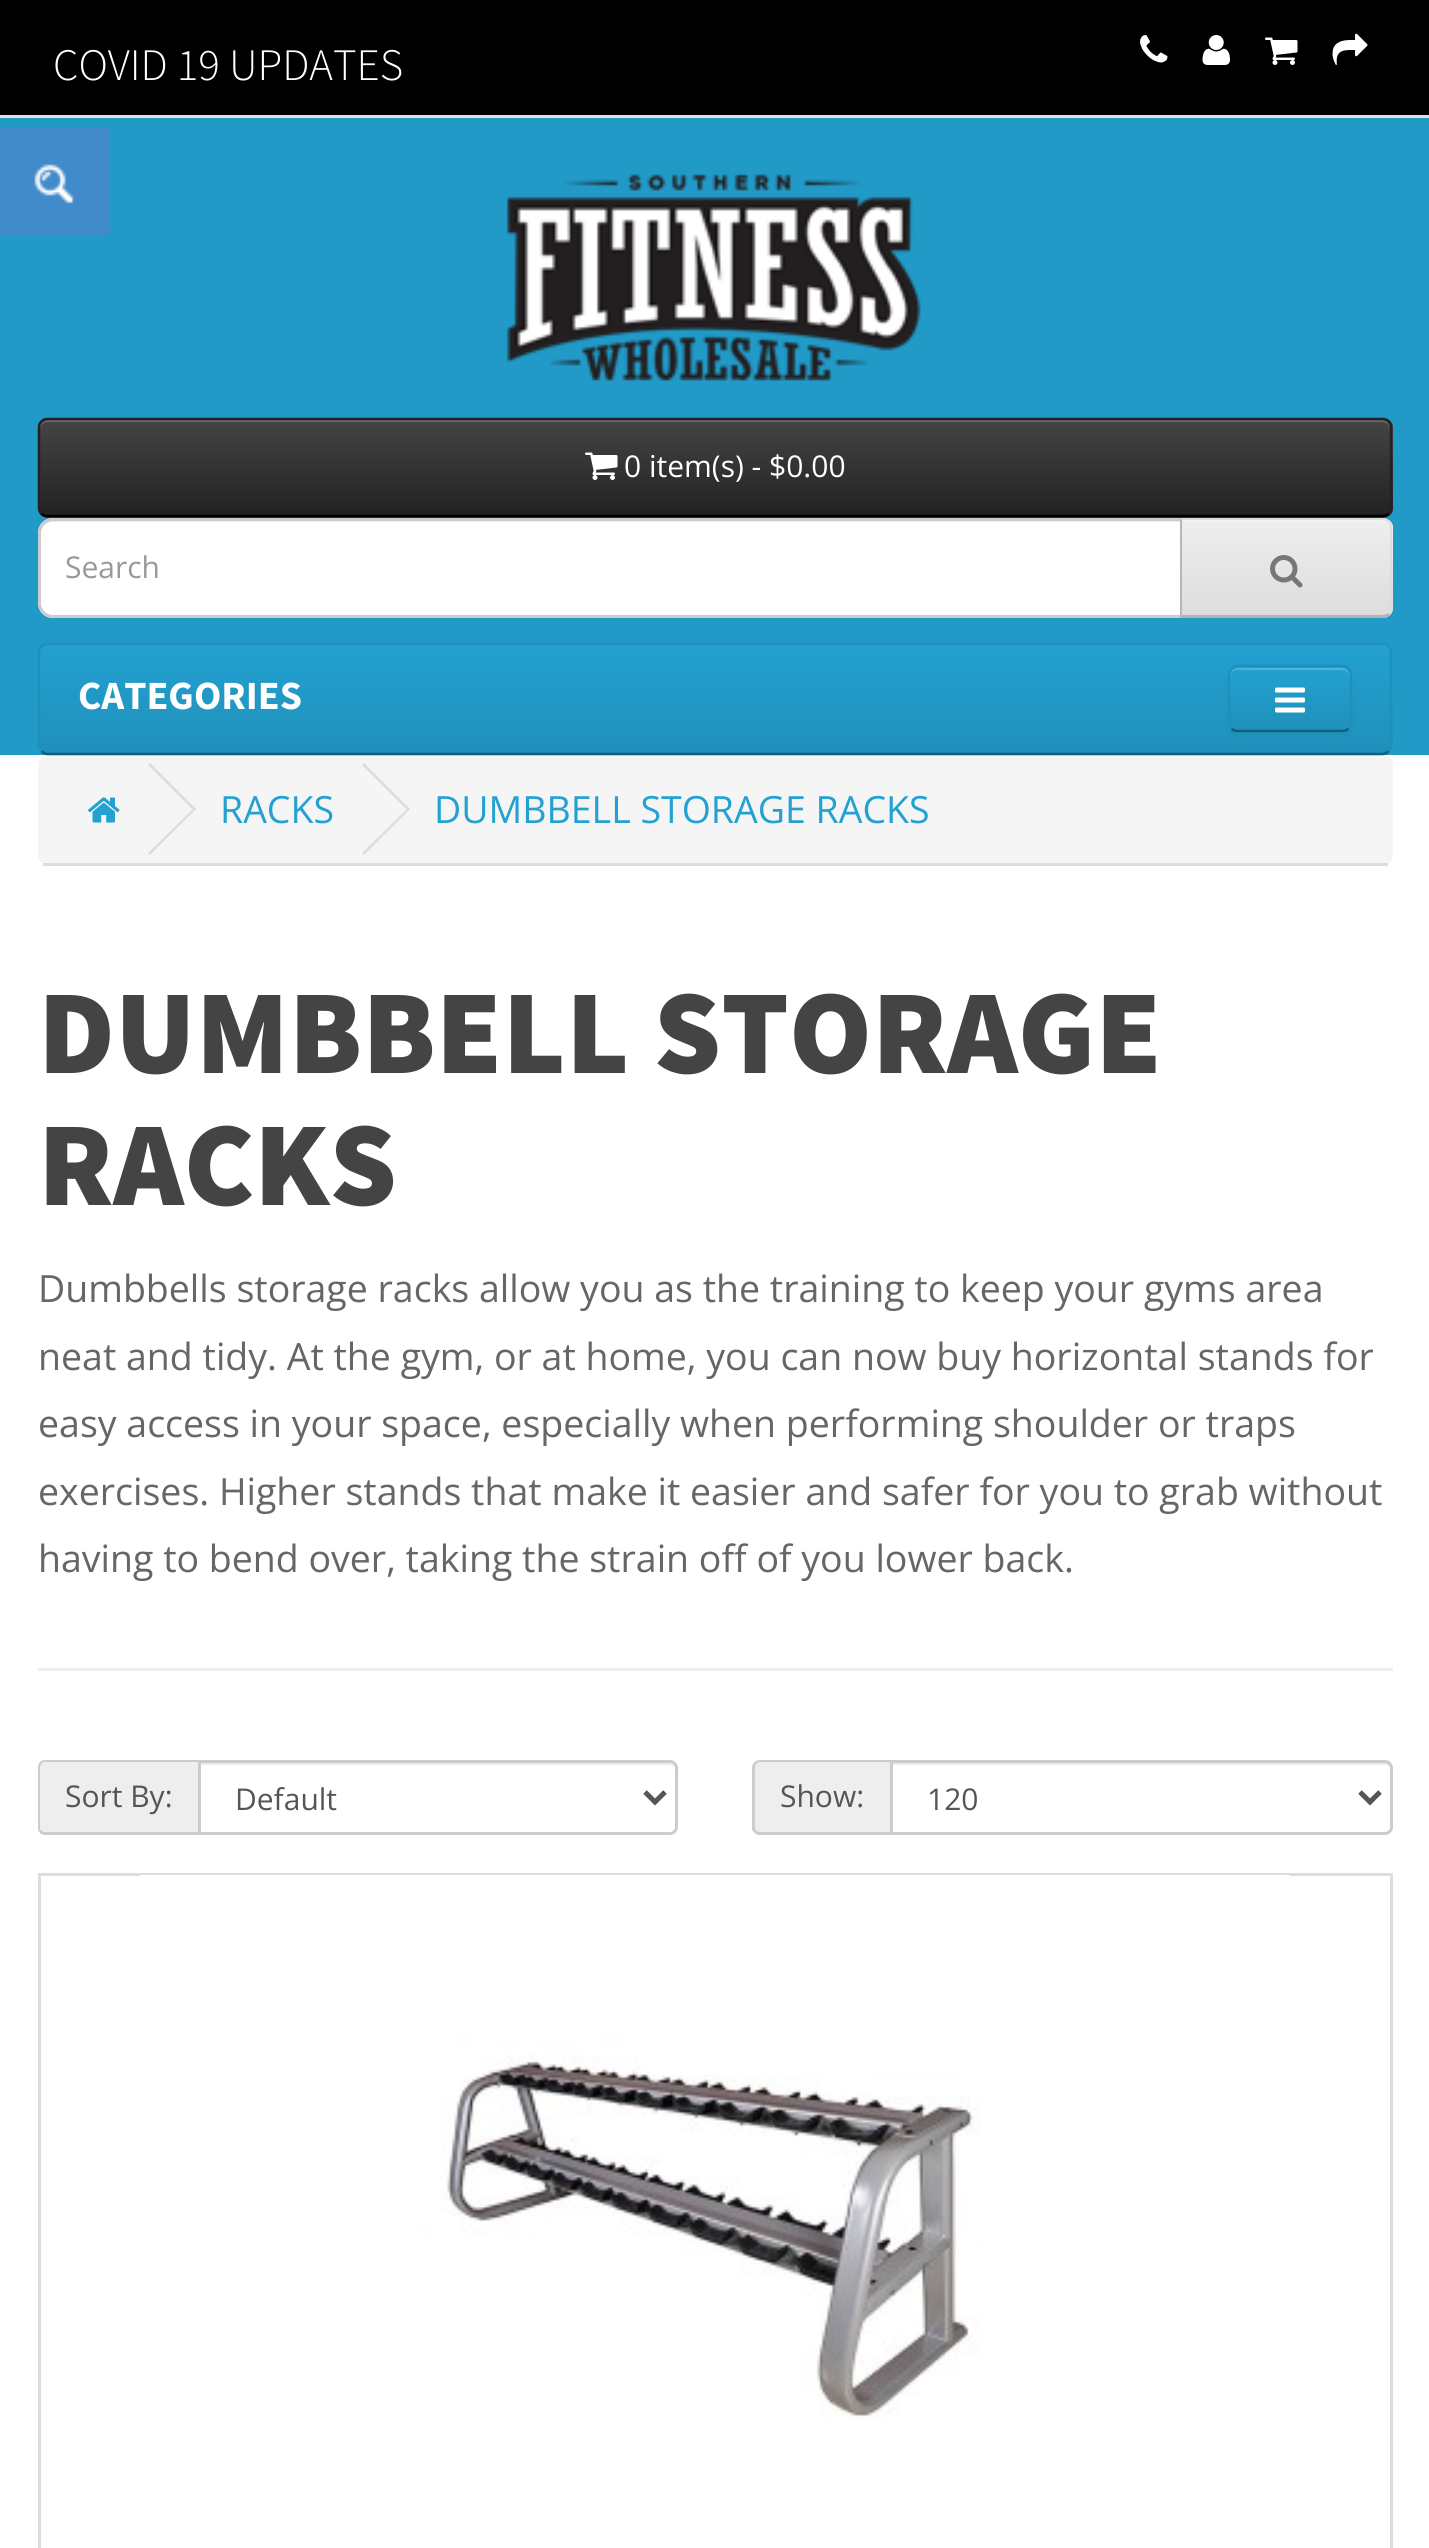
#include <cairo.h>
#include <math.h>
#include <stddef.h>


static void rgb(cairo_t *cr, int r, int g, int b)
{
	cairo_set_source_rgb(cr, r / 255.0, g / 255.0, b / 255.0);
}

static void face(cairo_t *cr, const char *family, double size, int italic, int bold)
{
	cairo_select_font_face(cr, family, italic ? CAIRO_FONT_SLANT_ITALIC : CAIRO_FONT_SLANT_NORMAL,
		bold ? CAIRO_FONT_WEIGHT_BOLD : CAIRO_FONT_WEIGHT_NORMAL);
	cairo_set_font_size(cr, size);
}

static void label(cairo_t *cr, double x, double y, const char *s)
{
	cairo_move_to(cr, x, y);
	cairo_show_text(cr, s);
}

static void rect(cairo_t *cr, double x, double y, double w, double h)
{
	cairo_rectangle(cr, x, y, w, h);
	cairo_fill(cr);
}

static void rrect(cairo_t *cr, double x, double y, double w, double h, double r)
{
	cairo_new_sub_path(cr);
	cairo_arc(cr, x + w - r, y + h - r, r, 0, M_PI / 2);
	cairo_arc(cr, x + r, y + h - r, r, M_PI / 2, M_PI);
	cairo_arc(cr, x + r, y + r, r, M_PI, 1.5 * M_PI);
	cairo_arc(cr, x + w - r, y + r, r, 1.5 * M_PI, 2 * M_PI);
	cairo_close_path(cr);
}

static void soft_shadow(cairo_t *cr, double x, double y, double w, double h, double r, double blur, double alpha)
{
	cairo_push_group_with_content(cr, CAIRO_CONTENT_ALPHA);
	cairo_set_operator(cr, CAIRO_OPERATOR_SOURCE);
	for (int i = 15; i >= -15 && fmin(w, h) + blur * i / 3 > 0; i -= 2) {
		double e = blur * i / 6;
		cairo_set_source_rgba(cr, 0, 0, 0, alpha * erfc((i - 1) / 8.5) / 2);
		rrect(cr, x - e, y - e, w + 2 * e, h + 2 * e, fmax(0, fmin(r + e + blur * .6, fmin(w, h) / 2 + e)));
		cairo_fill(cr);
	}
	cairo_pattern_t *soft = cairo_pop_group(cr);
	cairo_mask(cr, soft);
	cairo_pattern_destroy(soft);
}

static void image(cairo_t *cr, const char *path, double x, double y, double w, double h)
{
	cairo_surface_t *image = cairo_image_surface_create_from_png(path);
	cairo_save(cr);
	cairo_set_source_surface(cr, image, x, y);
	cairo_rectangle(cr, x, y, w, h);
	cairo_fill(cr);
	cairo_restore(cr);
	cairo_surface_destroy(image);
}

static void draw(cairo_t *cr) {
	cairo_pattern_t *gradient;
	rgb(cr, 255, 255, 255);
	cairo_paint(cr);
	rgb(cr, 0, 0, 0);
	rect(cr, 0, 0, 1429, 115);
	rgb(cr, 226, 226, 226);
	rect(cr, 0, 115, 1429, 3);
	face(cr, "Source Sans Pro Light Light", 45, 0, 0);
	rgb(cr, 255, 255, 255);
	label(cr, 53, 80, "COVID 19 UPDATES");
	image(cr, "image0.png", 1140, 35, 28, 28);
	image(cr, "image1.png", 1202, 35, 28, 30);
	image(cr, "image2.png", 1265, 37, 33, 28);
	image(cr, "image3.png", 1332, 33, 36, 32);
	rgb(cr, 33, 154, 200);
	rect(cr, 0, 118, 1429, 637);
	rgb(cr, 66, 139, 202);
	rect(cr, 0, 128, 110, 107);
	image(cr, "image4.png", 34, 164, 40, 40);
	image(cr, "image5.png", 506, 174, 415, 207);
	rgb(cr, 54, 54, 54);
	rrect(cr, 38, 418, 1355, 100, 10);
	cairo_fill(cr);
	cairo_save(cr);
	rrect(cr, 38, 418, 1355, 100, 10);
	cairo_clip(cr);
	gradient = cairo_pattern_create_linear(715, 420, 715, 515);
	cairo_pattern_add_color_stop_rgba(gradient, 0, 0.267, 0.267, 0.267, 1);
	cairo_pattern_add_color_stop_rgba(gradient, 1, 0.133, 0.133, 0.133, 1);
	cairo_set_source(cr, gradient);
	cairo_pattern_destroy(gradient);
	rect(cr, 38, 420, 1355, 95);
	cairo_restore(cr);
	rgb(cr, 105, 105, 105);
	cairo_new_path(cr);
	cairo_move_to(cr, 48, 422);
	cairo_line_to(cr, 1382, 422);
	cairo_curve_to(cr, 1387, 422, 1390, 426, 1390, 430);
	cairo_line_to(cr, 1390, 428);
	cairo_curve_to(cr, 1390, 424, 1386, 420, 1382, 420);
	cairo_line_to(cr, 48, 420);
	cairo_curve_to(cr, 44, 420, 40, 424, 40, 428);
	cairo_line_to(cr, 40, 430);
	cairo_curve_to(cr, 40, 426, 43, 422, 48, 422);
	cairo_close_path(cr);
	cairo_fill(cr);
	cairo_new_path(cr);
	cairo_move_to(cr, 1388.5, 513.5);
	cairo_curve_to(cr, 1387, 515.5, 1385, 516, 1382.5, 516);
	cairo_line_to(cr, 47.5, 516);
	cairo_curve_to(cr, 45, 516, 43, 515.5, 41.5, 513.5);
	rgb(cr, 0, 0, 0);
	cairo_set_line_width(cr, 2.5);
	cairo_stroke(cr);
	cairo_new_path(cr);
	cairo_move_to(cr, 41.5, 513.5);
	cairo_curve_to(cr, 39.5, 512, 39, 510, 39, 507.5);
	cairo_line_to(cr, 39, 427.5);
	cairo_curve_to(cr, 39, 425, 39.5, 423, 41.5, 421.5);
	cairo_curve_to(cr, 43, 419.5, 45, 419, 47.5, 419);
	cairo_line_to(cr, 1382.5, 419);
	cairo_curve_to(cr, 1385, 419, 1387, 419.5, 1388.5, 421.5);
	cairo_curve_to(cr, 1390.5, 423, 1391, 425, 1391, 427.5);
	cairo_line_to(cr, 1391, 507.5);
	cairo_curve_to(cr, 1391, 510, 1390.5, 512, 1388.5, 513.5);
	rgb(cr, 34, 34, 34);
	cairo_stroke(cr);
	image(cr, "image6.png", 585, 452, 33, 28);
	face(cr, "Open Sans", 30, 0, 0);
	rgb(cr, 255, 255, 255);
	label(cr, 624, 477, "0 item(s) - $0.00");
	cairo_new_path(cr);
	cairo_move_to(cr, 53, 518);
	cairo_line_to(cr, 1183, 518);
	cairo_line_to(cr, 1183, 618);
	cairo_line_to(cr, 53, 618);
	cairo_curve_to(cr, 44.5, 618, 38, 611.5, 38, 603);
	cairo_line_to(cr, 38, 533);
	cairo_curve_to(cr, 38, 524.5, 44.5, 518, 53, 518);
	cairo_close_path(cr);
	cairo_fill(cr);
	rgb(cr, 236, 236, 236);
	cairo_new_path(cr);
	cairo_move_to(cr, 52, 522);
	cairo_line_to(cr, 1180, 522);
	cairo_line_to(cr, 1180, 520);
	cairo_line_to(cr, 53, 520);
	cairo_curve_to(cr, 46, 520, 40, 526, 40, 533);
	cairo_line_to(cr, 40, 535);
	cairo_curve_to(cr, 40, 528, 46, 522, 52, 522);
	cairo_close_path(cr);
	cairo_fill(cr);
	cairo_new_path(cr);
	cairo_move_to(cr, 53, 519.5);
	cairo_line_to(cr, 1181.5, 519.5);
	cairo_line_to(cr, 1181.5, 616.5);
	cairo_line_to(cr, 53, 616.5);
	cairo_curve_to(cr, 45.5, 616.5, 39.5, 610.5, 39.5, 603);
	cairo_line_to(cr, 39.5, 533);
	cairo_curve_to(cr, 39.5, 525.5, 45.5, 519.5, 53, 519.5);
	cairo_close_path(cr);
	rgb(cr, 204, 204, 204);
	cairo_set_line_width(cr, 3);
	cairo_stroke(cr);
	rgb(cr, 153, 153, 153);
	label(cr, 65, 578, "Search");
	rgb(cr, 231, 231, 231);
	cairo_new_path(cr);
	cairo_move_to(cr, 1180, 518);
	cairo_line_to(cr, 1383, 518);
	cairo_curve_to(cr, 1388.5, 518, 1393, 522.5, 1393, 528);
	cairo_line_to(cr, 1393, 608);
	cairo_curve_to(cr, 1393, 613.5, 1388.5, 618, 1383, 618);
	cairo_line_to(cr, 1180, 618);
	cairo_close_path(cr);
	cairo_fill(cr);
	cairo_save(cr);
	cairo_new_path(cr);
	cairo_move_to(cr, 1180, 518);
	cairo_line_to(cr, 1383, 518);
	cairo_curve_to(cr, 1388.5, 518, 1393, 522.5, 1393, 528);
	cairo_line_to(cr, 1393, 608);
	cairo_curve_to(cr, 1393, 613.5, 1388.5, 618, 1383, 618);
	cairo_line_to(cr, 1180, 618);
	cairo_close_path(cr);
	cairo_clip(cr);
	gradient = cairo_pattern_create_linear(1286, 520, 1286, 615);
	cairo_pattern_add_color_stop_rgba(gradient, 0, 0.933, 0.933, 0.933, 1);
	cairo_pattern_add_color_stop_rgba(gradient, 1, 0.867, 0.867, 0.867, 1);
	cairo_set_source(cr, gradient);
	cairo_pattern_destroy(gradient);
	rect(cr, 1182, 520, 211, 95);
	cairo_restore(cr);
	rgb(cr, 241, 241, 241);
	cairo_new_path(cr);
	cairo_move_to(cr, 1183, 520);
	cairo_line_to(cr, 1183, 522);
	cairo_line_to(cr, 1382, 522);
	cairo_curve_to(cr, 1387, 522, 1390, 526, 1390, 530);
	cairo_curve_to(cr, 1390, 525, 1388, 520, 1382, 520);
	cairo_close_path(cr);
	cairo_fill(cr);
	rgb(cr, 221, 221, 221);
	cairo_new_path(cr);
	cairo_move_to(cr, 1389, 521);
	cairo_curve_to(cr, 1388, 519, 1385, 518, 1382, 518);
	cairo_line_to(cr, 1180, 518);
	cairo_line_to(cr, 1182, 520);
	cairo_line_to(cr, 1382, 520);
	cairo_curve_to(cr, 1384, 520, 1386, 521, 1388, 522);
	cairo_close_path(cr);
	cairo_fill(cr);
	cairo_new_path(cr);
	cairo_move_to(cr, 1389, 521);
	cairo_curve_to(cr, 1391, 522, 1392, 525, 1392, 528);
	cairo_line_to(cr, 1392, 608);
	cairo_curve_to(cr, 1392, 610, 1391, 613, 1390, 615);
	cairo_line_to(cr, 1388, 613);
	cairo_curve_to(cr, 1389, 612, 1390, 610, 1390, 608);
	cairo_line_to(cr, 1390, 528);
	cairo_curve_to(cr, 1390, 526, 1389, 524, 1388, 522);
	cairo_close_path(cr);
	cairo_fill(cr);
	rgb(cr, 179, 179, 179);
	cairo_new_path(cr);
	cairo_move_to(cr, 1385, 618);
	cairo_line_to(cr, 1180, 618);
	cairo_line_to(cr, 1182, 615);
	cairo_line_to(cr, 1382, 615);
	cairo_curve_to(cr, 1385, 615, 1387, 614, 1388, 613);
	cairo_line_to(cr, 1390, 615);
	cairo_curve_to(cr, 1388, 616, 1387, 617, 1385, 618);
	cairo_close_path(cr);
	cairo_fill(cr);
	rgb(cr, 183, 183, 183);
	cairo_new_path(cr);
	cairo_move_to(cr, 1182, 520);
	cairo_line_to(cr, 1180, 518);
	cairo_line_to(cr, 1180, 618);
	cairo_line_to(cr, 1182, 615);
	cairo_close_path(cr);
	cairo_fill(cr);
	image(cr, "image7.png", 1270, 555, 33, 33);
	cairo_save(cr);
	rrect(cr, 38, 643, 1355, 112, 10);
	cairo_clip(cr);
	gradient = cairo_pattern_create_linear(715, 645, 715, 753);
	cairo_pattern_add_color_stop_rgba(gradient, 0, 0.137, 0.631, 0.82, 1);
	cairo_pattern_add_color_stop_rgba(gradient, 1, 0.122, 0.565, 0.733, 1);
	cairo_set_source(cr, gradient);
	cairo_pattern_destroy(gradient);
	rect(cr, 38, 645, 1355, 108);
	cairo_restore(cr);
	rgb(cr, 245, 245, 245);
	rrect(cr, 38, 755, 1355, 110, 10);
	cairo_fill(cr);
	cairo_new_path(cr);
	cairo_move_to(cr, 1388.5, 751);
	cairo_curve_to(cr, 1387, 753, 1385, 754, 1382.5, 754);
	cairo_line_to(cr, 47.5, 754);
	cairo_curve_to(cr, 45, 754, 43, 753, 41.5, 751);
	rgb(cr, 20, 94, 122);
	cairo_set_line_width(cr, 2.5);
	cairo_stroke(cr);
	cairo_new_path(cr);
	cairo_move_to(cr, 41.5, 751);
	cairo_curve_to(cr, 39.5, 749.5, 39, 747.5, 39, 745);
	cairo_line_to(cr, 39, 652.5);
	cairo_curve_to(cr, 39, 650, 39.5, 648, 41.5, 646.5);
	cairo_curve_to(cr, 43, 644.5, 45, 644, 47.5, 644);
	cairo_line_to(cr, 1382.5, 644);
	cairo_curve_to(cr, 1385, 644, 1387, 644.5, 1388.5, 646.5);
	cairo_curve_to(cr, 1390.5, 648, 1391, 650, 1391, 652.5);
	cairo_line_to(cr, 1391, 745);
	cairo_curve_to(cr, 1391, 747.5, 1390.5, 749.5, 1388.5, 751);
	rgb(cr, 31, 144, 187);
	cairo_stroke(cr);
	face(cr, "Source Sans Pro", 40, 0, 1);
	rgb(cr, 255, 255, 255);
	label(cr, 78, 709, "CATEGORIES");
	rgb(cr, 0, 0, 0);
	soft_shadow(cr, 1228, 668, 125, 67, 10, 2.5, 0.05);
	rgb(cr, 34, 154, 200);
	rrect(cr, 1228, 665, 125, 68, 10);
	cairo_fill(cr);
	cairo_save(cr);
	rrect(cr, 1228, 665, 125, 68, 10);
	cairo_clip(cr);
	gradient = cairo_pattern_create_linear(1290, 668, 1290, 730);
	cairo_pattern_add_color_stop_rgba(gradient, 0, 0.137, 0.631, 0.82, 1);
	cairo_pattern_add_color_stop_rgba(gradient, 1, 0.122, 0.565, 0.733, 1);
	cairo_set_source(cr, gradient);
	cairo_pattern_destroy(gradient);
	rect(cr, 1228, 668, 125, 62);
	cairo_restore(cr);
	cairo_set_source_rgba(cr, 1, 1, 1, 0.2);
	cairo_new_path(cr);
	cairo_move_to(cr, 1238, 670);
	cairo_line_to(cr, 1342, 670);
	cairo_curve_to(cr, 1347, 670, 1350, 673, 1350, 678);
	cairo_curve_to(cr, 1350, 664, 1335, 668, 1325, 668);
	cairo_line_to(cr, 1255, 668);
	cairo_curve_to(cr, 1245, 668, 1230, 664, 1230, 678);
	cairo_curve_to(cr, 1230, 673, 1233, 670, 1238, 670);
	cairo_close_path(cr);
	cairo_fill(cr);
	cairo_new_path(cr);
	cairo_move_to(cr, 1348.5, 728.5);
	cairo_curve_to(cr, 1347, 730.5, 1345, 731, 1342.5, 731);
	cairo_line_to(cr, 1237.5, 731);
	cairo_curve_to(cr, 1235, 731, 1233, 730.5, 1231.5, 728.5);
	rgb(cr, 20, 94, 122);
	cairo_stroke(cr);
	cairo_new_path(cr);
	cairo_move_to(cr, 1231.5, 728.5);
	cairo_curve_to(cr, 1229.5, 727, 1229, 725, 1229, 722.5);
	cairo_line_to(cr, 1229, 675);
	cairo_curve_to(cr, 1229, 672.5, 1229.5, 670.5, 1231.5, 669);
	cairo_curve_to(cr, 1233, 667, 1235, 666, 1237.5, 666);
	cairo_line_to(cr, 1342.5, 666);
	cairo_curve_to(cr, 1345, 666, 1347, 667, 1348.5, 669);
	cairo_curve_to(cr, 1350.5, 670.5, 1351, 672.5, 1351, 675);
	cairo_line_to(cr, 1351, 722.5);
	cairo_curve_to(cr, 1351, 725, 1350.5, 727, 1348.5, 728.5);
	rgb(cr, 31, 144, 187);
	cairo_stroke(cr);
	image(cr, "image8.png", 1275, 687, 30, 26);
	rgb(cr, 221, 221, 221);
	rect(cr, 43, 863, 1345, 3);
	image(cr, "image9.png", 88, 797, 32, 26);
	cairo_new_path(cr);
	cairo_move_to(cr, 148, 765);
	cairo_line_to(cr, 150, 763);
	cairo_line_to(cr, 196, 809);
	cairo_line_to(cr, 194, 811);
	cairo_close_path(cr);
	cairo_fill(cr);
	cairo_new_path(cr);
	cairo_move_to(cr, 148, 853);
	cairo_line_to(cr, 194, 808);
	cairo_line_to(cr, 196, 809);
	cairo_line_to(cr, 150, 855);
	cairo_close_path(cr);
	cairo_fill(cr);
	face(cr, "Open Sans", 37.5, 0, 0);
	rgb(cr, 35, 161, 209);
	label(cr, 220, 823, "RACKS");
	rgb(cr, 221, 221, 221);
	cairo_new_path(cr);
	cairo_move_to(cr, 362, 765);
	cairo_line_to(cr, 364, 763);
	cairo_line_to(cr, 410, 809);
	cairo_line_to(cr, 408, 811);
	cairo_close_path(cr);
	cairo_fill(cr);
	cairo_new_path(cr);
	cairo_move_to(cr, 362, 853);
	cairo_line_to(cr, 408, 808);
	cairo_line_to(cr, 410, 809);
	cairo_line_to(cr, 364, 855);
	cairo_close_path(cr);
	cairo_fill(cr);
	rgb(cr, 35, 161, 209);
	label(cr, 434, 823, "DUMBBELL STORAGE RACKS");
	face(cr, "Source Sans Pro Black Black", 120, 0, 0);
	rgb(cr, 68, 68, 68);
	label(cr, 38, 1073, "DUMBBELL STORAGE");
	label(cr, 38, 1205, "RACKS");
	face(cr, "Open Sans", 37.5, 0, 0);
	rgb(cr, 102, 102, 102);
	label(cr, 38, 1302, "Dumbbells storage racks allow you as the training to keep your gyms area");
	label(cr, 38, 1370, "neat and tidy. At the gym, or at home, you can now buy horizontal stands for");
	label(cr, 38, 1437, "easy access in your space, especially when performing shoulder or traps");
	label(cr, 38, 1505, "exercises. Higher stands that make it easier and safer for you to grab without");
	label(cr, 38, 1572, "having to bend over, taking the strain off of you lower back.");
	rgb(cr, 238, 238, 238);
	rect(cr, 38, 1668, 1355, 3);
	cairo_new_path(cr);
	cairo_move_to(cr, 46, 1760);
	cairo_line_to(cr, 198, 1760);
	cairo_line_to(cr, 198, 1835);
	cairo_line_to(cr, 46, 1835);
	cairo_curve_to(cr, 41.5, 1835, 38, 1831.5, 38, 1827);
	cairo_line_to(cr, 38, 1768);
	cairo_curve_to(cr, 38, 1763.5, 41.5, 1760, 46, 1760);
	cairo_close_path(cr);
	cairo_fill(cr);
	rgb(cr, 204, 204, 204);
	cairo_set_fill_rule(cr, CAIRO_FILL_RULE_EVEN_ODD);
	cairo_new_path(cr);
	cairo_move_to(cr, 45, 1760);
	cairo_line_to(cr, 198, 1760);
	cairo_line_to(cr, 198, 1835);
	cairo_line_to(cr, 45, 1835);
	cairo_curve_to(cr, 41, 1835, 38, 1832, 38, 1828);
	cairo_line_to(cr, 38, 1768);
	cairo_curve_to(cr, 38, 1763, 41, 1760, 45, 1760);
	cairo_close_path(cr);
	cairo_move_to(cr, 45, 1762);
	cairo_line_to(cr, 198, 1762);
	cairo_line_to(cr, 198, 1832);
	cairo_line_to(cr, 45, 1832);
	cairo_curve_to(cr, 42, 1832, 40, 1830, 40, 1828);
	cairo_line_to(cr, 40, 1768);
	cairo_curve_to(cr, 40, 1765, 42, 1762, 45, 1762);
	cairo_close_path(cr);
	cairo_fill(cr);
	face(cr, "Open Sans", 30, 0, 0);
	rgb(cr, 85, 85, 85);
	label(cr, 65, 1807, "Sort By:");
	rgb(cr, 236, 236, 236);
	cairo_set_fill_rule(cr, CAIRO_FILL_RULE_WINDING);
	cairo_new_path(cr);
	cairo_move_to(cr, 200, 1765);
	cairo_line_to(cr, 670, 1765);
	cairo_curve_to(cr, 673, 1765, 675, 1767, 675, 1770);
	cairo_line_to(cr, 675, 1768);
	cairo_curve_to(cr, 675, 1765, 673, 1763, 670, 1763);
	cairo_line_to(cr, 200, 1763);
	cairo_close_path(cr);
	cairo_fill(cr);
	cairo_new_path(cr);
	cairo_move_to(cr, 199.5, 1761.5);
	cairo_line_to(cr, 670, 1761.5);
	cairo_curve_to(cr, 673.5, 1761.5, 676.5, 1764.5, 676.5, 1768);
	cairo_line_to(cr, 676.5, 1827);
	cairo_curve_to(cr, 676.5, 1830.5, 673.5, 1833.5, 670, 1833.5);
	cairo_line_to(cr, 199.5, 1833.5);
	cairo_close_path(cr);
	rgb(cr, 204, 204, 204);
	cairo_set_line_width(cr, 3);
	cairo_stroke(cr);
	cairo_new_path(cr);
	cairo_move_to(cr, 645, 1792);
	cairo_line_to(cr, 655, 1802);
	cairo_line_to(cr, 665, 1792);
	rgb(cr, 85, 85, 85);
	cairo_set_line_width(cr, 5);
	cairo_stroke(cr);
	label(cr, 235, 1810, "Default");
	rgb(cr, 238, 238, 238);
	cairo_new_path(cr);
	cairo_move_to(cr, 761, 1760);
	cairo_line_to(cr, 890, 1760);
	cairo_line_to(cr, 890, 1835);
	cairo_line_to(cr, 761, 1835);
	cairo_curve_to(cr, 756.5, 1835, 753, 1831.5, 753, 1827);
	cairo_line_to(cr, 753, 1768);
	cairo_curve_to(cr, 753, 1763.5, 756.5, 1760, 761, 1760);
	cairo_close_path(cr);
	cairo_fill(cr);
	rgb(cr, 204, 204, 204);
	cairo_set_fill_rule(cr, CAIRO_FILL_RULE_EVEN_ODD);
	cairo_new_path(cr);
	cairo_move_to(cr, 760, 1760);
	cairo_line_to(cr, 890, 1760);
	cairo_line_to(cr, 890, 1835);
	cairo_line_to(cr, 760, 1835);
	cairo_curve_to(cr, 756, 1835, 752, 1832, 752, 1828);
	cairo_line_to(cr, 752, 1768);
	cairo_curve_to(cr, 752, 1763, 756, 1760, 760, 1760);
	cairo_close_path(cr);
	cairo_move_to(cr, 760, 1762);
	cairo_line_to(cr, 890, 1762);
	cairo_line_to(cr, 890, 1832);
	cairo_line_to(cr, 760, 1832);
	cairo_curve_to(cr, 757, 1832, 755, 1830, 755, 1828);
	cairo_line_to(cr, 755, 1768);
	cairo_curve_to(cr, 755, 1765, 757, 1762, 760, 1762);
	cairo_close_path(cr);
	cairo_fill(cr);
	rgb(cr, 85, 85, 85);
	label(cr, 780, 1807, "Show:");
	rgb(cr, 236, 236, 236);
	cairo_set_fill_rule(cr, CAIRO_FILL_RULE_WINDING);
	cairo_new_path(cr);
	cairo_move_to(cr, 893, 1763);
	cairo_line_to(cr, 893, 1765);
	cairo_line_to(cr, 1385, 1765);
	cairo_curve_to(cr, 1388, 1765, 1390, 1767, 1390, 1770);
	cairo_curve_to(cr, 1390, 1767, 1389, 1763, 1385, 1763);
	cairo_close_path(cr);
	cairo_fill(cr);
	cairo_new_path(cr);
	cairo_move_to(cr, 891.5, 1761.5);
	cairo_line_to(cr, 1385, 1761.5);
	cairo_curve_to(cr, 1388.5, 1761.5, 1391.5, 1764.5, 1391.5, 1768);
	cairo_line_to(cr, 1391.5, 1827);
	cairo_curve_to(cr, 1391.5, 1830.5, 1388.5, 1833.5, 1385, 1833.5);
	cairo_line_to(cr, 891.5, 1833.5);
	cairo_close_path(cr);
	rgb(cr, 204, 204, 204);
	cairo_set_line_width(cr, 3);
	cairo_stroke(cr);
	cairo_new_path(cr);
	cairo_move_to(cr, 1360, 1792);
	cairo_line_to(cr, 1370, 1802);
	cairo_line_to(cr, 1380, 1792);
	rgb(cr, 85, 85, 85);
	cairo_set_line_width(cr, 5);
	cairo_stroke(cr);
	label(cr, 927, 1810, "120");
	cairo_rectangle(cr, 39.5, 1874.5, 1352, 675);
	rgb(cr, 221, 221, 221);
	cairo_set_line_width(cr, 3);
	cairo_stroke(cr);
	image(cr, "image10.png", 140, 1875, 1150, 546);
}

int main(void) {
	cairo_surface_t *surface = cairo_image_surface_create(CAIRO_FORMAT_RGB24, 1429, 2548);
	cairo_t *cr = cairo_create(surface);
	cairo_font_options_t *options = cairo_font_options_create();
	cairo_font_options_set_hint_metrics(options, CAIRO_HINT_METRICS_OFF);
	cairo_font_options_set_hint_style(options, CAIRO_HINT_STYLE_NONE);
	cairo_set_font_options(cr, options);
	cairo_set_miter_limit(cr, 4);
	draw(cr);
	cairo_surface_write_to_png(surface, "render.png");
	cairo_font_options_destroy(options);
	cairo_destroy(cr);
	cairo_surface_destroy(surface);
	return 0;
}
